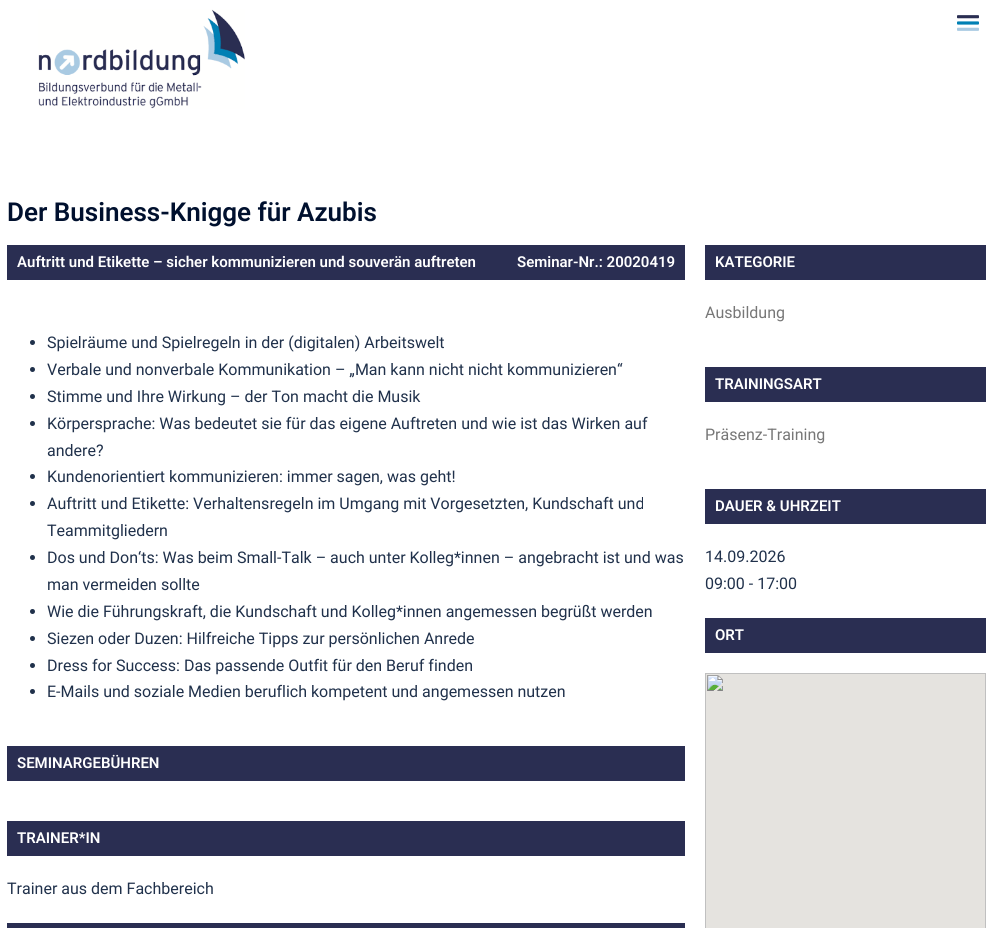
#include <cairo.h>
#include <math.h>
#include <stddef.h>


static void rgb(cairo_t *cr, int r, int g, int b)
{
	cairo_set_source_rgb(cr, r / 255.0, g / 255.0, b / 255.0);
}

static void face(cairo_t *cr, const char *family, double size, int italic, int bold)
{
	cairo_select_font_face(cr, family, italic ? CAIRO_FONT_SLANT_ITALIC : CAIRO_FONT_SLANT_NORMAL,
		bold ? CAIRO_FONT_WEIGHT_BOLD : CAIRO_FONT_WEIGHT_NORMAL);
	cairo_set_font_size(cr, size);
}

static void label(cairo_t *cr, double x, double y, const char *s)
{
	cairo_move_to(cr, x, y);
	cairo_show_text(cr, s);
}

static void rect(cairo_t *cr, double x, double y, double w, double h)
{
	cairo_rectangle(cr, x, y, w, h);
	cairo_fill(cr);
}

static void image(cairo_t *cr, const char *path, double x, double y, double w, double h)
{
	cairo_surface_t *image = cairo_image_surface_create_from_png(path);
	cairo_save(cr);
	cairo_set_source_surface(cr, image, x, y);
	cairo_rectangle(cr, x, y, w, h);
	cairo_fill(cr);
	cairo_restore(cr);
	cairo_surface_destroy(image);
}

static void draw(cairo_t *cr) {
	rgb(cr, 255, 255, 255);
	cairo_paint(cr);
	image(cr, "image0.png", 38, 9, 207, 100);
	image(cr, "image1.png", 957, 15, 22, 16);
	face(cr, "Roboto SemiBold", 26, 0, 0);
	rgb(cr, 0, 16, 46);
	label(cr, 7, 221, "Der Business-Knigge für Azubis");
	rgb(cr, 42, 46, 82);
	rect(cr, 7, 245, 678, 35);
	face(cr, "Roboto SemiBold", 15, 0, 0);
	rgb(cr, 255, 255, 255);
	label(cr, 17, 267, "Auftritt und Etikette – sicher kommunizieren und souverän auftreten");
	label(cr, 517, 267, "Seminar-Nr.: 20020419");
	rgb(cr, 32, 49, 75);
	cairo_new_path(cr);
	cairo_arc(cr, 32.5, 342.5, 2.5, 0, 2 * M_PI);
	cairo_fill(cr);
	face(cr, "Roboto", 16, 0, 0);
	label(cr, 47, 348, "Spielräume und Spielregeln in der (digitalen) Arbeitswelt");
	cairo_new_path(cr);
	cairo_arc(cr, 32.5, 369.5, 2.5, 0, 2 * M_PI);
	cairo_fill(cr);
	label(cr, 47, 375, "Verbale und nonverbale Kommunikation – „Man kann nicht nicht kommunizieren“");
	cairo_new_path(cr);
	cairo_arc(cr, 32.5, 396.5, 2.5, 0, 2 * M_PI);
	cairo_fill(cr);
	label(cr, 47, 402, "Stimme und Ihre Wirkung – der Ton macht die Musik");
	cairo_new_path(cr);
	cairo_arc(cr, 32.5, 423.5, 2.5, 0, 2 * M_PI);
	cairo_fill(cr);
	label(cr, 47, 429, "Körpersprache: Was bedeutet sie für das eigene Auftreten und wie ist das Wirken auf");
	label(cr, 47, 456, "andere?");
	cairo_new_path(cr);
	cairo_arc(cr, 32.5, 476.5, 2.5, 0, 2 * M_PI);
	cairo_fill(cr);
	label(cr, 47, 482, "Kundenorientiert kommunizieren: immer sagen, was geht!");
	cairo_new_path(cr);
	cairo_arc(cr, 32.5, 503.5, 2.5, 0, 2 * M_PI);
	cairo_fill(cr);
	label(cr, 47, 509, "Auftritt und Etikette: Verhaltensregeln im Umgang mit Vorgesetzten, Kundschaft und");
	label(cr, 47, 536, "Teammitgliedern");
	cairo_new_path(cr);
	cairo_arc(cr, 32.5, 557.5, 2.5, 0, 2 * M_PI);
	cairo_fill(cr);
	label(cr, 47, 563, "Dos und Don‘ts: Was beim Small-Talk – auch unter Kolleg*innen – angebracht ist und was");
	label(cr, 47, 590, "man vermeiden sollte");
	cairo_new_path(cr);
	cairo_arc(cr, 32.5, 611.5, 2.5, 0, 2 * M_PI);
	cairo_fill(cr);
	label(cr, 47, 617, "Wie die Führungskraft, die Kundschaft und Kolleg*innen angemessen begrüßt werden");
	cairo_new_path(cr);
	cairo_arc(cr, 32.5, 638.5, 2.5, 0, 2 * M_PI);
	cairo_fill(cr);
	label(cr, 47, 644, "Siezen oder Duzen: Hilfreiche Tipps zur persönlichen Anrede");
	cairo_new_path(cr);
	cairo_arc(cr, 32.5, 665.5, 2.5, 0, 2 * M_PI);
	cairo_fill(cr);
	label(cr, 47, 671, "Dress for Success: Das passende Outfit für den Beruf finden");
	cairo_new_path(cr);
	cairo_arc(cr, 32.5, 691.5, 2.5, 0, 2 * M_PI);
	cairo_fill(cr);
	label(cr, 47, 697, "E-Mails und soziale Medien beruflich kompetent und angemessen nutzen");
	rgb(cr, 42, 46, 82);
	rect(cr, 7, 746, 678, 35);
	face(cr, "Roboto SemiBold", 15, 0, 0);
	rgb(cr, 255, 255, 255);
	label(cr, 17, 768, "SEMINARGEBÜHREN");
	rgb(cr, 42, 46, 82);
	rect(cr, 7, 821, 678, 35);
	rgb(cr, 255, 255, 255);
	label(cr, 17, 843, "TRAINER*IN");
	face(cr, "Roboto", 16, 0, 0);
	rgb(cr, 32, 49, 75);
	label(cr, 7, 894, "Trainer aus dem Fachbereich");
	rgb(cr, 42, 46, 82);
	rect(cr, 7, 923, 678, 5);
	rect(cr, 705, 245, 281, 35);
	face(cr, "Roboto SemiBold", 15, 0, 0);
	rgb(cr, 255, 255, 255);
	label(cr, 715, 267, "KATEGORIE");
	face(cr, "Roboto", 16, 0, 0);
	rgb(cr, 119, 119, 119);
	label(cr, 705, 318, "Ausbildung");
	rgb(cr, 42, 46, 82);
	rect(cr, 705, 367, 281, 35);
	face(cr, "Roboto SemiBold", 15, 0, 0);
	rgb(cr, 255, 255, 255);
	label(cr, 715, 389, "TRAININGSART");
	face(cr, "Roboto", 16, 0, 0);
	rgb(cr, 119, 119, 119);
	label(cr, 705, 440, "Präsenz-Training");
	rgb(cr, 42, 46, 82);
	rect(cr, 705, 489, 281, 35);
	face(cr, "Roboto SemiBold", 15, 0, 0);
	rgb(cr, 255, 255, 255);
	label(cr, 715, 511, "DAUER & UHRZEIT");
	face(cr, "Roboto", 16, 0, 0);
	rgb(cr, 32, 49, 75);
	label(cr, 705, 562, "14.09.2026");
	label(cr, 705, 589, "09:00 - 17:00");
	rgb(cr, 42, 46, 82);
	rect(cr, 705, 618, 281, 35);
	face(cr, "Roboto SemiBold", 15, 0, 0);
	rgb(cr, 255, 255, 255);
	label(cr, 715, 640, "ORT");
	image(cr, "image2.png", 705, 673, 281, 255);
}

int main(void) {
	cairo_surface_t *surface = cairo_image_surface_create(CAIRO_FORMAT_RGB24, 994, 928);
	cairo_t *cr = cairo_create(surface);
	cairo_font_options_t *options = cairo_font_options_create();
	cairo_font_options_set_hint_metrics(options, CAIRO_HINT_METRICS_OFF);
	cairo_font_options_set_hint_style(options, CAIRO_HINT_STYLE_NONE);
	cairo_set_font_options(cr, options);
	cairo_set_miter_limit(cr, 4);
	draw(cr);
	cairo_surface_write_to_png(surface, "render.png");
	cairo_font_options_destroy(options);
	cairo_destroy(cr);
	cairo_surface_destroy(surface);
	return 0;
}
